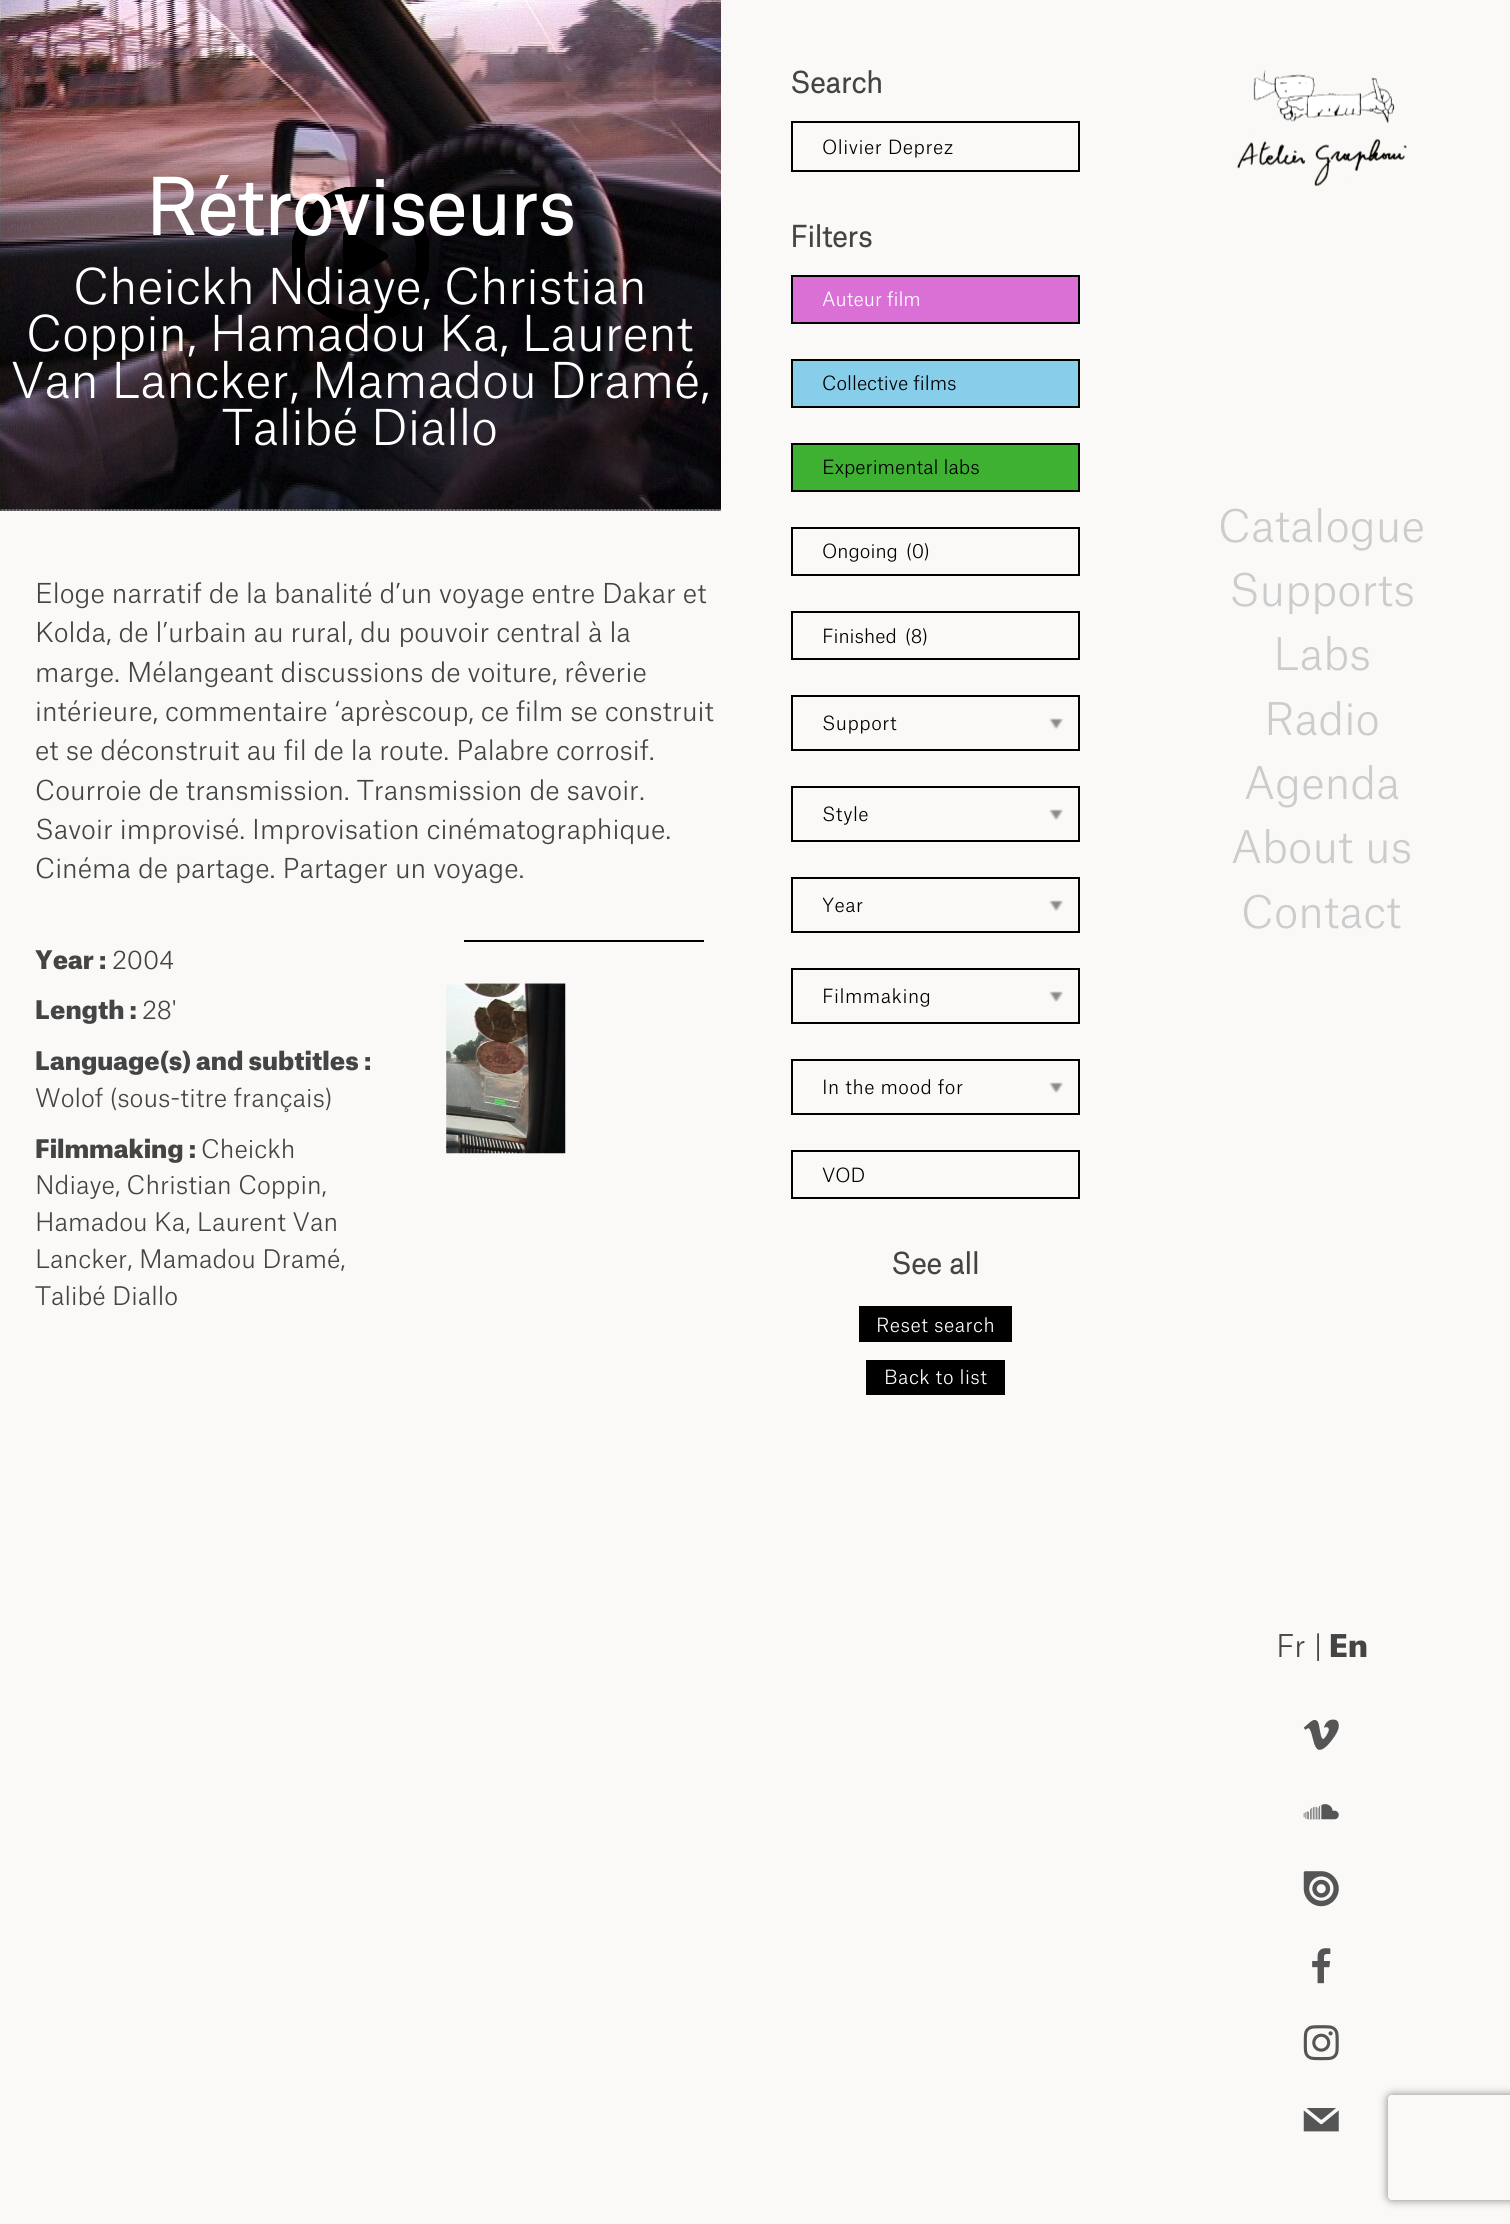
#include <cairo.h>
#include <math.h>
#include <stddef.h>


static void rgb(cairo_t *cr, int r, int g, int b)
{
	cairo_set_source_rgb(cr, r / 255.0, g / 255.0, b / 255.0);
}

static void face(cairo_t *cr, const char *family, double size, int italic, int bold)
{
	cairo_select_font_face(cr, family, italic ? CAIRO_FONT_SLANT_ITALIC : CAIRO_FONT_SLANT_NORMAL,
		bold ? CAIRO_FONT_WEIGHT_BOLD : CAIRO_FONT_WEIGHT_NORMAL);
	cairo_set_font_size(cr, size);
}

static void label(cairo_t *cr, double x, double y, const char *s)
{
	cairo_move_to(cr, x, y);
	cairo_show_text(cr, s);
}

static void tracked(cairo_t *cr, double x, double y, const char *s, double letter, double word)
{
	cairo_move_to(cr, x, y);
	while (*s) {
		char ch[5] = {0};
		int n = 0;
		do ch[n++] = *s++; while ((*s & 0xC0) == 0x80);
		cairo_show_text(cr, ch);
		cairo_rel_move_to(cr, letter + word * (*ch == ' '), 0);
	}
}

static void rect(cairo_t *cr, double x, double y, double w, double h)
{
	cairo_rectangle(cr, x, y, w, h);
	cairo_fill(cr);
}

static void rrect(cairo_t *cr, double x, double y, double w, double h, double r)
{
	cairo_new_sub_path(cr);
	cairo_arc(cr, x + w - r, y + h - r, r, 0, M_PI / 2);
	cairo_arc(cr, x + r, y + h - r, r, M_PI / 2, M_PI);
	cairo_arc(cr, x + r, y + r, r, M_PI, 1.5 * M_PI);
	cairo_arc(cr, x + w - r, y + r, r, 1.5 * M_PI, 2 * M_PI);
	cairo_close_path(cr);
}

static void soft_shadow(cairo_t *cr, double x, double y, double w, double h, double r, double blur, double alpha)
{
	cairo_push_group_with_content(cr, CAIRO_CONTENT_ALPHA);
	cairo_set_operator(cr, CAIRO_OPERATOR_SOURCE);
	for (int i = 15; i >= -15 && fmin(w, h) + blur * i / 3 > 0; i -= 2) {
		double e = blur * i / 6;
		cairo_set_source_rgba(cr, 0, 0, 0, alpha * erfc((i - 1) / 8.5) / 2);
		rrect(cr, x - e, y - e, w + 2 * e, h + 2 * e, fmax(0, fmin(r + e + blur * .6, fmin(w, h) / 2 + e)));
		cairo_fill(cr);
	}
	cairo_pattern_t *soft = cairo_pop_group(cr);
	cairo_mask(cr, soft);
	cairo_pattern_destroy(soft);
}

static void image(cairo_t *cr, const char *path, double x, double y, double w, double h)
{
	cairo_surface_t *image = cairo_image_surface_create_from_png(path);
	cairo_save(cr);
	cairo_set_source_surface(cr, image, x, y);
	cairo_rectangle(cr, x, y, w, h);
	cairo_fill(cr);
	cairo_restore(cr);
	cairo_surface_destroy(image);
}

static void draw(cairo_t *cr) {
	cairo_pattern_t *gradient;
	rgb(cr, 250, 249, 248);
	cairo_paint(cr);
	gradient = cairo_pattern_create_linear(360, 0, 361, 511);
	cairo_pattern_add_color_stop_rgba(gradient, 0.05, 0.976, 0.973, 0.973, 1);
	cairo_pattern_add_color_stop_rgba(gradient, 0.7, 0.878, 0.875, 0.875, 1);
	cairo_pattern_add_color_stop_rgba(gradient, 1, 0.486, 0.486, 0.486, 1);
	cairo_set_source(cr, gradient);
	cairo_pattern_destroy(gradient);
	rect(cr, 0, 509, 721, 2);
	cairo_new_path(cr);
	cairo_move_to(cr, 0, 510);
	cairo_line_to(cr, 721, 510);
	rgb(cr, 68, 68, 68);
	cairo_set_line_width(cr, 1.8);
	cairo_set_dash(cr, (double[]){1.75, 1.75}, 2, 0);
	cairo_stroke(cr);
	image(cr, "image0.png", 0, 0, 721, 510);
	image(cr, "image1.png", 292, 187, 137, 137);
	face(cr, "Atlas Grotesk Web", 73.5, 0, 1);
	rgb(cr, 255, 255, 255);
	label(cr, 145, 235, "Rétroviseurs");
	face(cr, "Atlas Grotesk Web Light", 47.25, 0, 0);
	label(cr, 73, 304, "Cheickh Ndiaye, Christian");
	label(cr, 26, 351, "Coppin, Hamadou Ka, Laurent");
	label(cr, 11, 398, "Van Lancker, Mamadou Dramé,");
	label(cr, 222, 445, "Talibé Diallo");
	face(cr, "Atlas Grotesk Web Light", 26.25, 0, 0);
	rgb(cr, 68, 68, 68);
	label(cr, 35, 603, "Eloge narratif de la banalité d’un voyage entre Dakar et");
	label(cr, 35, 642, "Kolda, de l’urbain au rural, du pouvoir central à la");
	label(cr, 35, 682, "marge. Mélangeant discussions de voiture, rêverie");
	label(cr, 35, 721, "intérieure, commentaire ‘aprèscoup, ce film se construit");
	label(cr, 35, 760, "et se déconstruit au fil de la route. Palabre corrosif.");
	label(cr, 35, 800, "Courroie de transmission. Transmission de savoir.");
	label(cr, 35, 839, "Savoir improvisé. Improvisation cinématographique.");
	label(cr, 35, 878, "Cinéma de partage. Partager un voyage.");
	face(cr, "Atlas Grotesk Web Black", 24.5, 0, 0);
	label(cr, 35, 969, "Year :");
	face(cr, "Atlas Grotesk Web Light", 24.5, 0, 0);
	label(cr, 112, 969, "2004");
	face(cr, "Atlas Grotesk Web Black", 24.5, 0, 0);
	label(cr, 35, 1019, "Length :");
	face(cr, "Atlas Grotesk Web Light", 24.5, 0, 0);
	label(cr, 142, 1019, "28'");
	face(cr, "Atlas Grotesk Web Black", 24.5, 0, 0);
	label(cr, 35, 1070, "Language(s) and subtitles :");
	face(cr, "Atlas Grotesk Web Light", 24.5, 0, 0);
	label(cr, 35, 1107, "Wolof (sous-titre français)");
	face(cr, "Atlas Grotesk Web Black", 24.5, 0, 0);
	label(cr, 35, 1158, "Filmmaking :");
	face(cr, "Atlas Grotesk Web Light", 24.5, 0, 0);
	label(cr, 201, 1158, "Cheickh");
	label(cr, 35, 1194, "Ndiaye, Christian Coppin,");
	label(cr, 35, 1231, "Hamadou Ka, Laurent Van");
	label(cr, 35, 1268, "Lancker, Mamadou Dramé,");
	label(cr, 35, 1305, "Talibé Diallo");
	rgb(cr, 0, 0, 0);
	rect(cr, 464, 940, 240, 2);
	cairo_new_path(cr);
	cairo_move_to(cr, 446, 1147);
	cairo_line_to(cr, 565, 1147);
	rgb(cr, 68, 68, 68);
	cairo_stroke(cr);
	image(cr, "image2.png", 446, 983, 120, 171);
	face(cr, "Atlas Grotesk Web", 28, 0, 1);
	label(cr, 790, 93, "Search");
	cairo_rectangle(cr, 792, 122, 287, 49);
	rgb(cr, 0, 0, 0);
	cairo_set_line_width(cr, 2);
	cairo_set_dash(cr, NULL, 0, 0);
	cairo_stroke(cr);
	face(cr, "Atlas Grotesk Web Light", 18.75, 0, 0);
	tracked(cr, 822, 154, "Olivier Deprez", 0.5, 0);
	face(cr, "Atlas Grotesk Web", 28, 0, 1);
	rgb(cr, 68, 68, 68);
	label(cr, 790, 247, "Filters");
	rgb(cr, 218, 112, 214);
	cairo_rectangle(cr, 792, 276, 287, 47);
	cairo_fill_preserve(cr);
	rgb(cr, 0, 0, 0);
	cairo_stroke(cr);
	face(cr, "Atlas Grotesk Web Light", 18.75, 0, 0);
	rgb(cr, 255, 255, 255);
	label(cr, 822, 306, "Auteur film");
	rgb(cr, 135, 206, 235);
	cairo_rectangle(cr, 792, 360, 287, 47);
	cairo_fill_preserve(cr);
	rgb(cr, 0, 0, 0);
	cairo_stroke(cr);
	label(cr, 822, 390, "Collective films");
	rgb(cr, 62, 176, 50);
	cairo_rectangle(cr, 792, 444, 287, 47);
	cairo_fill_preserve(cr);
	rgb(cr, 0, 0, 0);
	cairo_stroke(cr);
	label(cr, 822, 474, "Experimental labs");
	cairo_rectangle(cr, 792, 528, 287, 47);
	cairo_stroke(cr);
	label(cr, 822, 558, "Ongoing");
	label(cr, 906, 558, "(0)");
	cairo_rectangle(cr, 792, 612, 287, 47);
	cairo_stroke(cr);
	label(cr, 822, 643, "Finished");
	label(cr, 905, 643, "(8)");
	cairo_rectangle(cr, 792, 696, 287, 54);
	cairo_stroke(cr);
	tracked(cr, 822, 730, "Support", 0.5, 0);
	image(cr, "image3.png", 1049, 718, 14, 11);
	cairo_rectangle(cr, 792, 787, 287, 54);
	cairo_stroke(cr);
	tracked(cr, 822, 821, "Style", 0.5, 0);
	image(cr, "image3.png", 1049, 809, 14, 11);
	cairo_rectangle(cr, 792, 878, 287, 54);
	cairo_stroke(cr);
	cairo_save(cr);
	cairo_rectangle(cr, 823, 884, 210, 42);
	cairo_clip(cr);
	tracked(cr, 822, 912, "Year", 0.5, 0);
	cairo_restore(cr);
	image(cr, "image4.png", 1049, 900, 14, 11);
	cairo_rectangle(cr, 792, 969, 287, 54);
	cairo_stroke(cr);
	tracked(cr, 822, 1003, "Filmmaking", 0.5, 0);
	image(cr, "image3.png", 1049, 991, 14, 11);
	cairo_rectangle(cr, 792, 1060, 287, 54);
	cairo_stroke(cr);
	tracked(cr, 822, 1094, "In the mood for", 0.5, 0);
	image(cr, "image3.png", 1049, 1082, 14, 11);
	cairo_rectangle(cr, 792, 1151, 287, 47);
	cairo_stroke(cr);
	label(cr, 822, 1182, "VOD");
	face(cr, "Atlas Grotesk Web", 28, 0, 1);
	rgb(cr, 68, 68, 68);
	label(cr, 891, 1274, "See all");
	rgb(cr, 0, 0, 0);
	rect(cr, 859, 1306, 153, 36);
	face(cr, "Atlas Grotesk Web Light", 18.75, 0, 0);
	rgb(cr, 255, 255, 255);
	tracked(cr, 876, 1332, "Reset search", 0.5, 0);
	rgb(cr, 0, 0, 0);
	rect(cr, 866, 1360, 139, 35);
	rgb(cr, 255, 255, 255);
	tracked(cr, 884, 1384, "Back to list", 0.5, 0);
	image(cr, "image5.png", 1236, 70, 171, 117);
	face(cr, "Atlas Grotesk Web Light", 43, 0, 0);
	rgb(cr, 204, 204, 204);
	label(cr, 1218, 542, "Catalogue");
	label(cr, 1229, 606, "Supports");
	label(cr, 1273, 670, "Labs");
	label(cr, 1264, 735, "Radio");
	label(cr, 1244, 799, "Agenda");
	label(cr, 1231, 863, "About us");
	label(cr, 1241, 928, "Contact");
	face(cr, "Atlas Grotesk Web Light", 30, 0, 0);
	rgb(cr, 68, 68, 68);
	label(cr, 1276, 1657, "Fr |");
	face(cr, "Atlas Grotesk Web Black", 30, 0, 0);
	label(cr, 1329, 1657, "En");
	image(cr, "image6.png", 1303, 1719, 36, 31);
	image(cr, "image7.png", 1303, 1804, 36, 16);
	image(cr, "image8.png", 1303, 1871, 36, 36);
	image(cr, "image9.png", 1312, 1948, 19, 36);
	image(cr, "image10.png", 1303, 2025, 36, 36);
	image(cr, "image11.png", 1303, 2108, 36, 24);
	cairo_save(cr);
	cairo_set_fill_rule(cr, CAIRO_FILL_RULE_EVEN_ODD);
	cairo_new_path(cr);
	cairo_move_to(cr, 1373, 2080);
	cairo_line_to(cr, 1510, 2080);
	cairo_line_to(cr, 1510, 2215);
	cairo_line_to(cr, 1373, 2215);
	cairo_close_path(cr);
	cairo_move_to(cr, 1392, 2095);
	cairo_line_to(cr, 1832, 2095);
	cairo_curve_to(cr, 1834, 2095, 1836, 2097, 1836, 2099);
	cairo_line_to(cr, 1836, 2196);
	cairo_curve_to(cr, 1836, 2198, 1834, 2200, 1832, 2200);
	cairo_line_to(cr, 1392, 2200);
	cairo_curve_to(cr, 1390, 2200, 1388, 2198, 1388, 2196);
	cairo_line_to(cr, 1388, 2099);
	cairo_curve_to(cr, 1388, 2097, 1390, 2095, 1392, 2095);
	cairo_close_path(cr);
	cairo_clip(cr);
	rgb(cr, 128, 128, 128);
	soft_shadow(cr, 1388, 2095, 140, 105, 4, 4.5, 1);
	cairo_restore(cr);
}

int main(void) {
	cairo_surface_t *surface = cairo_image_surface_create(CAIRO_FORMAT_RGB24, 1510, 2224);
	cairo_t *cr = cairo_create(surface);
	cairo_font_options_t *options = cairo_font_options_create();
	cairo_font_options_set_hint_metrics(options, CAIRO_HINT_METRICS_OFF);
	cairo_font_options_set_hint_style(options, CAIRO_HINT_STYLE_NONE);
	cairo_set_font_options(cr, options);
	cairo_set_miter_limit(cr, 4);
	draw(cr);
	cairo_surface_write_to_png(surface, "render.png");
	cairo_font_options_destroy(options);
	cairo_destroy(cr);
	cairo_surface_destroy(surface);
	return 0;
}
